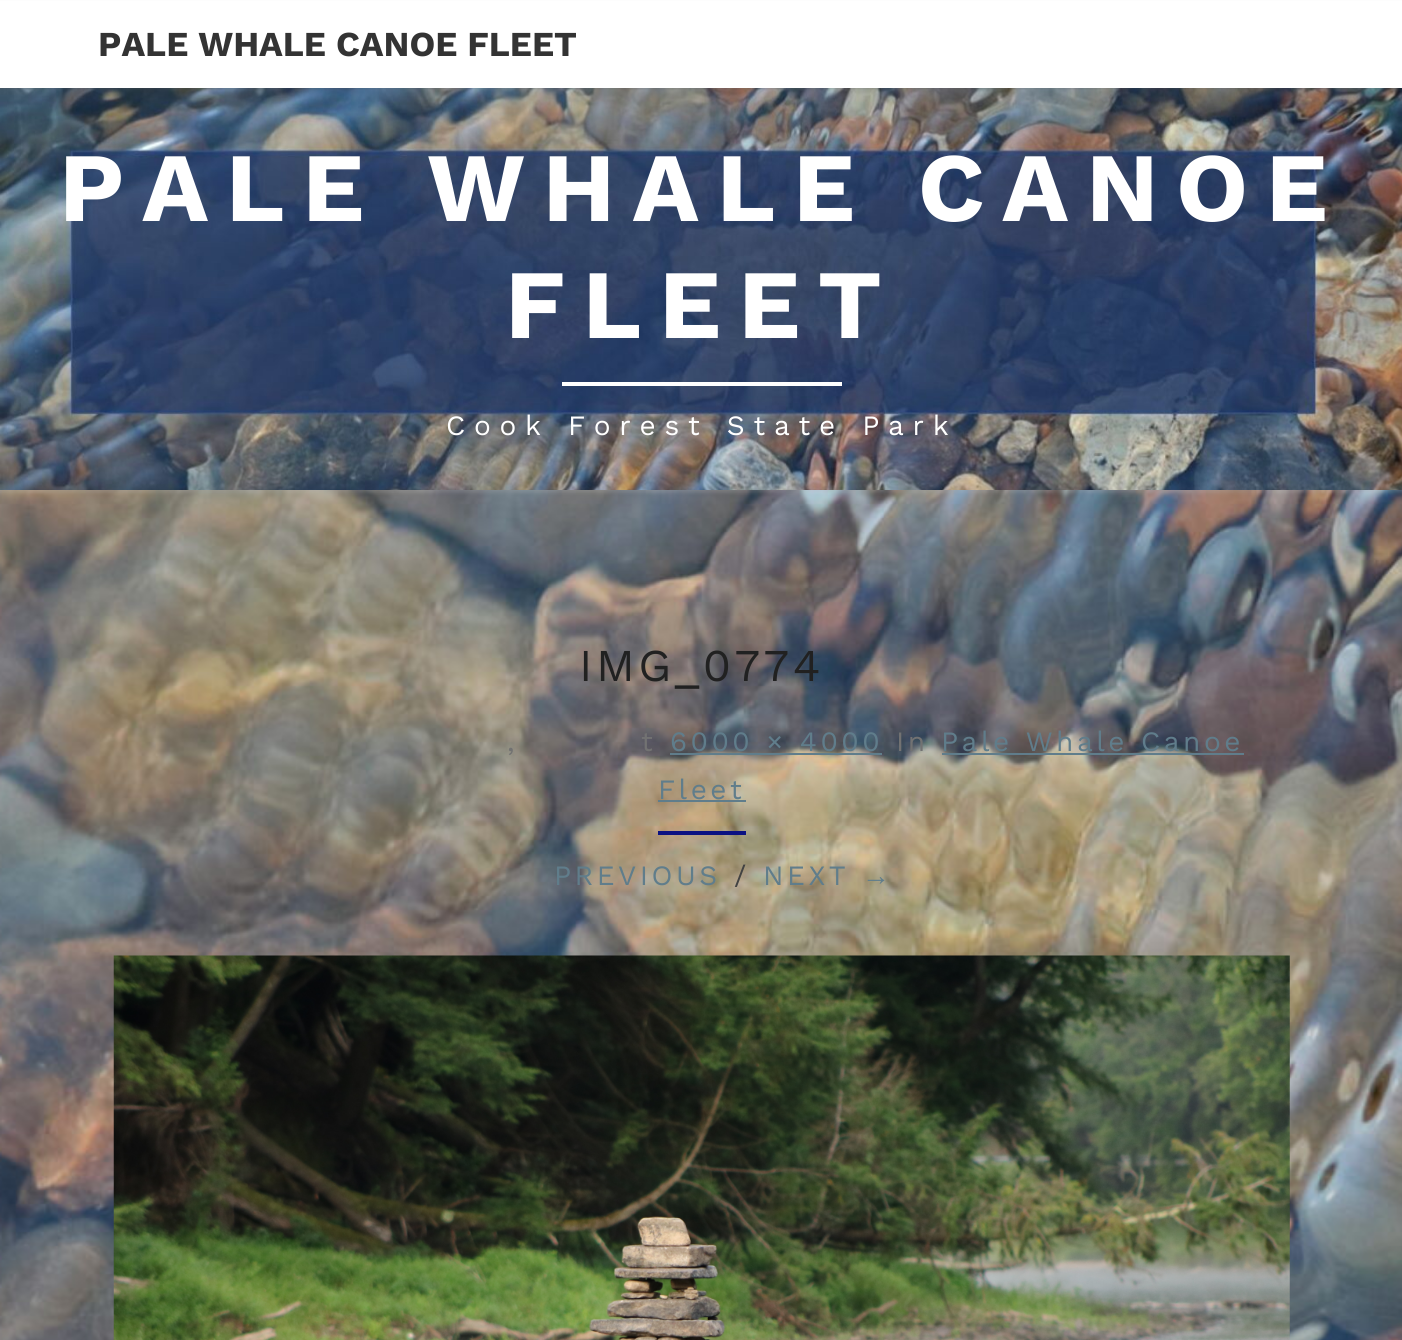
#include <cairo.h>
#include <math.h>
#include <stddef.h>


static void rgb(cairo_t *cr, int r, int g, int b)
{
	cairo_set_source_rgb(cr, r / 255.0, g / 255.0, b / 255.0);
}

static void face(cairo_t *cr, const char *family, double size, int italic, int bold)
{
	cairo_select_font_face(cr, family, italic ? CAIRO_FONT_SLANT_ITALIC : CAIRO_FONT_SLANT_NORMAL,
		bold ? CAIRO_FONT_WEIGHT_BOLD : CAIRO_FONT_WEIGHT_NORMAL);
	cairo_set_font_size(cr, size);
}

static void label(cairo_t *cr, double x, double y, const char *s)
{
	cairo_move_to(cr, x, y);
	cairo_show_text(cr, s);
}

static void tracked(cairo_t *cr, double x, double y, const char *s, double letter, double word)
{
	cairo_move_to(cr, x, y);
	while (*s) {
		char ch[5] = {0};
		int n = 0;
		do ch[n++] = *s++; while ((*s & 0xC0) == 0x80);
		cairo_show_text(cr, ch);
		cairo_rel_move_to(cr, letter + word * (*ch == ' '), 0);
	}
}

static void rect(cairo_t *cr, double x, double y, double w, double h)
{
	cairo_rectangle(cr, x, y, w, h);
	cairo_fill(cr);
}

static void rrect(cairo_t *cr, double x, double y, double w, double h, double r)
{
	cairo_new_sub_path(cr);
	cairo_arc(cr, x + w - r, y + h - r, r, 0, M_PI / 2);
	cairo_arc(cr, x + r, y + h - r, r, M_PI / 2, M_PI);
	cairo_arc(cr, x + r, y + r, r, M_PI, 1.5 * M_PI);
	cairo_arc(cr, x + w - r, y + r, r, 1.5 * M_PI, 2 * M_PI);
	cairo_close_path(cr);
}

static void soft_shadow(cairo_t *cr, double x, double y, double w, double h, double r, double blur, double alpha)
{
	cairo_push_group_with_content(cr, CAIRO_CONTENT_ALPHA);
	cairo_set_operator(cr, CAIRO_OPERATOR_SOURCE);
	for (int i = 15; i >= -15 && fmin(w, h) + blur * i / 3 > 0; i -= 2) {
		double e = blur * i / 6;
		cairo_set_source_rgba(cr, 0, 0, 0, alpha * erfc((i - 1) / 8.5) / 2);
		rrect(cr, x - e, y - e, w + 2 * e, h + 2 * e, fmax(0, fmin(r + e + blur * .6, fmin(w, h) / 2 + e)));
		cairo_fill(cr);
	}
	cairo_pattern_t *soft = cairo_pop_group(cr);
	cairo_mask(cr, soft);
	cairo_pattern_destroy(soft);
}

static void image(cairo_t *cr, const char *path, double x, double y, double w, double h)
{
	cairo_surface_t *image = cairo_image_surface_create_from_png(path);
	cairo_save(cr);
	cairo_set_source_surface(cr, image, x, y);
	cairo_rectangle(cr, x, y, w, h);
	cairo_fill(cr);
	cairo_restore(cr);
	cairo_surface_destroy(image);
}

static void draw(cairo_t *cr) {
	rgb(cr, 255, 255, 255);
	cairo_paint(cr);
	image(cr, "image0.png", 0, 490, 1402, 850);
	rgb(cr, 182, 182, 182);
	soft_shadow(cr, -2, 86, 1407, 406, 0, 2, 0.3);
	image(cr, "image1.png", 0, 88, 1402, 402);
	rgb(cr, 100, 100, 100);
	soft_shadow(cr, 0, 2, 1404, 87, 0, 1, 0.2);
	rgb(cr, 255, 255, 255);
	rect(cr, 0, 1, 1402, 87);
	face(cr, "Work Sans", 35, 0, 1);
	rgb(cr, 51, 51, 51);
	label(cr, 98, 56, "PALE WHALE CANOE FLEET");
	face(cr, "Work Sans", 98, 0, 1);
	rgb(cr, 255, 255, 255);
	tracked(cr, 59, 221, "PALE WHALE CANOE", 17.5, 0);
	tracked(cr, 505, 338, "FLEET", 17.5, 0);
	rect(cr, 562, 382, 280, 4);
	face(cr, "Work Sans", 28, 0, 0);
	tracked(cr, 446, 435, "Cook Forest State Park", 8.75, 0);
	face(cr, "Work Sans", 45.5, 0, 0);
	rgb(cr, 33, 33, 33);
	tracked(cr, 579, 681, "IMG_0774", 3.5, 0);
	face(cr, "Work Sans", 28, 0, 0);
	rgb(cr, 114, 114, 114);
	tracked(cr, 507, 751, ",", 3.5, 0);
	tracked(cr, 641, 751, "t", 3.5, 0);
	rgb(cr, 96, 125, 139);
	tracked(cr, 670, 751, "6000 × 4000", 3.5, 0);
	rect(cr, 670, 753, 212, 2);
	rgb(cr, 114, 114, 114);
	tracked(cr, 896, 751, "In", 3.5, 0);
	rgb(cr, 96, 125, 139);
	tracked(cr, 941, 751, "Pale Whale Canoe", 3.5, 0);
	rect(cr, 942, 753, 302, 2);
	tracked(cr, 658, 799, "Fleet", 3.5, 0);
	rect(cr, 658, 800, 88, 2);
	rgb(cr, 11, 17, 130);
	rect(cr, 658, 831, 88, 4);
	rgb(cr, 96, 125, 139);
	tracked(cr, 554, 885, "PREVIOUS", 3.5, 0);
	rgb(cr, 66, 66, 66);
	tracked(cr, 734, 885, "/", 3.5, 0);
	rgb(cr, 96, 125, 139);
	tracked(cr, 763, 885, "NEXT", 3.5, 0);
	face(cr, "Liberation Sans", 28, 0, 0);
	tracked(cr, 862, 885, "→", 3.5, 0);
	image(cr, "image2.png", 113, 955, 1177, 385);
}

int main(void) {
	cairo_surface_t *surface = cairo_image_surface_create(CAIRO_FORMAT_RGB24, 1402, 1340);
	cairo_t *cr = cairo_create(surface);
	cairo_font_options_t *options = cairo_font_options_create();
	cairo_font_options_set_hint_metrics(options, CAIRO_HINT_METRICS_OFF);
	cairo_font_options_set_hint_style(options, CAIRO_HINT_STYLE_NONE);
	cairo_set_font_options(cr, options);
	cairo_set_miter_limit(cr, 4);
	draw(cr);
	cairo_surface_write_to_png(surface, "render.png");
	cairo_font_options_destroy(options);
	cairo_destroy(cr);
	cairo_surface_destroy(surface);
	return 0;
}
